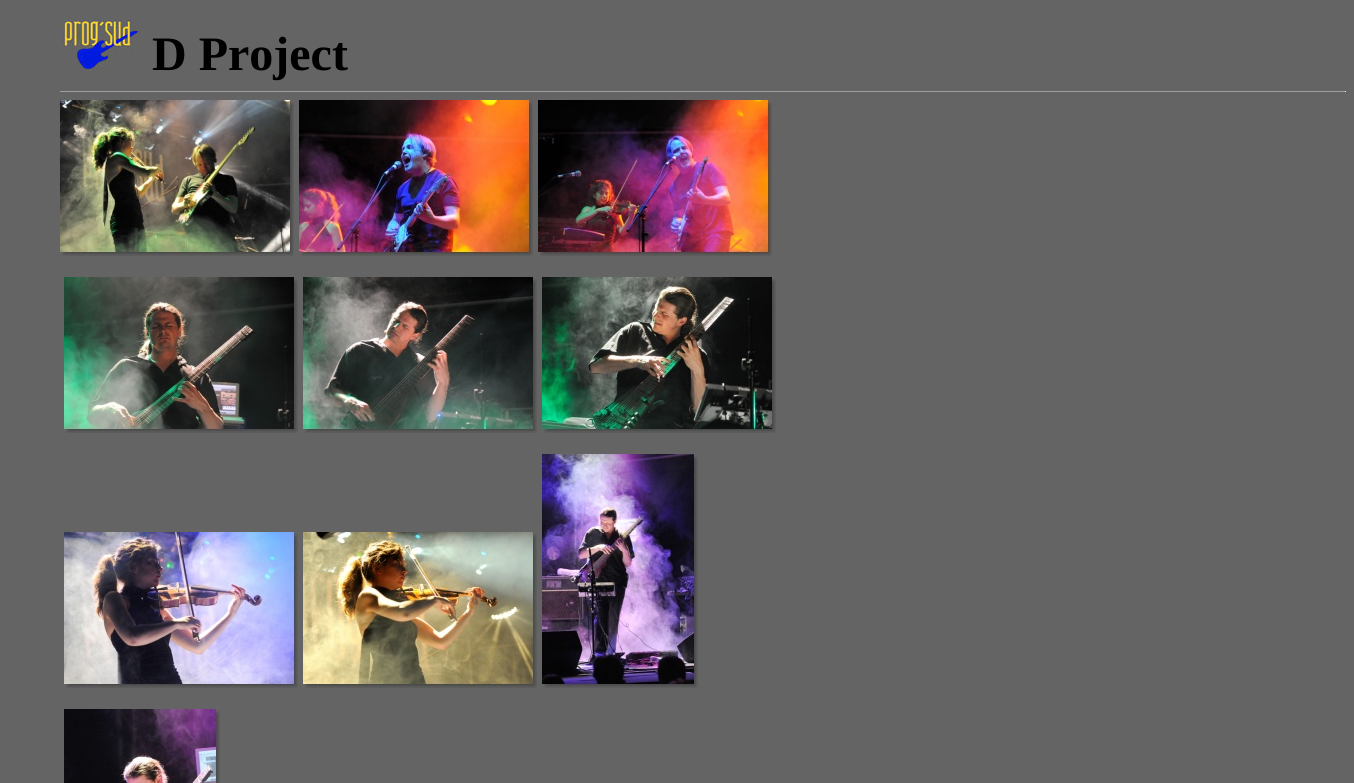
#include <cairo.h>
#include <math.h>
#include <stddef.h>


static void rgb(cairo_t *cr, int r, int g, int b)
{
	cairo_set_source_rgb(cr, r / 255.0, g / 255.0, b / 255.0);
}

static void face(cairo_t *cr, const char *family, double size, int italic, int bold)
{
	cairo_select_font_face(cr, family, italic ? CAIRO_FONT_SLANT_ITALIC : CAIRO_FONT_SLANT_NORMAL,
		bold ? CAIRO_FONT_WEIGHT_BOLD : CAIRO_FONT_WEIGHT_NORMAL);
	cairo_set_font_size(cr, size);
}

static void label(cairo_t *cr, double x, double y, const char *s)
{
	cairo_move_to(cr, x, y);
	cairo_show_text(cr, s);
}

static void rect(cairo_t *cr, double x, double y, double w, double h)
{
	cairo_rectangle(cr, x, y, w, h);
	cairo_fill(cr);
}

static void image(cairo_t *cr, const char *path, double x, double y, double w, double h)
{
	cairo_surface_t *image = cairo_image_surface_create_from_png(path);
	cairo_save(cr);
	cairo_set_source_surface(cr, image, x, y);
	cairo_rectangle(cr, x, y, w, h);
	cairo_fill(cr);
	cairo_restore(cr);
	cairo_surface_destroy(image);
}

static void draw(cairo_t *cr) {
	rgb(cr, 100, 100, 100);
	cairo_paint(cr);
	image(cr, "image0.png", 60, 20, 80, 50);
	face(cr, "Liberation Serif", 48, 0, 1);
	rgb(cr, 0, 0, 0);
	label(cr, 152, 70, "D Project");
	rgb(cr, 159, 159, 159);
	rect(cr, 60, 91, 1286, 1);
	rgb(cr, 238, 238, 238);
	rect(cr, 1345, 91, 1, 1);
	image(cr, "image1.png", 60, 100, 234, 157);
	image(cr, "image2.png", 299, 100, 234, 157);
	image(cr, "image3.png", 538, 100, 235, 157);
	image(cr, "image4.png", 64, 277, 234, 156);
	image(cr, "image5.png", 303, 277, 234, 157);
	image(cr, "image6.png", 542, 277, 234, 157);
	image(cr, "image7.png", 64, 532, 234, 156);
	image(cr, "image8.png", 303, 532, 234, 156);
	image(cr, "image9.png", 542, 454, 157, 235);
	image(cr, "image10.png", 64, 709, 156, 74);
}

int main(void) {
	cairo_surface_t *surface = cairo_image_surface_create(CAIRO_FORMAT_RGB24, 1354, 783);
	cairo_t *cr = cairo_create(surface);
	cairo_font_options_t *options = cairo_font_options_create();
	cairo_font_options_set_hint_metrics(options, CAIRO_HINT_METRICS_OFF);
	cairo_font_options_set_hint_style(options, CAIRO_HINT_STYLE_NONE);
	cairo_set_font_options(cr, options);
	cairo_set_miter_limit(cr, 4);
	draw(cr);
	cairo_surface_write_to_png(surface, "render.png");
	cairo_font_options_destroy(options);
	cairo_destroy(cr);
	cairo_surface_destroy(surface);
	return 0;
}
